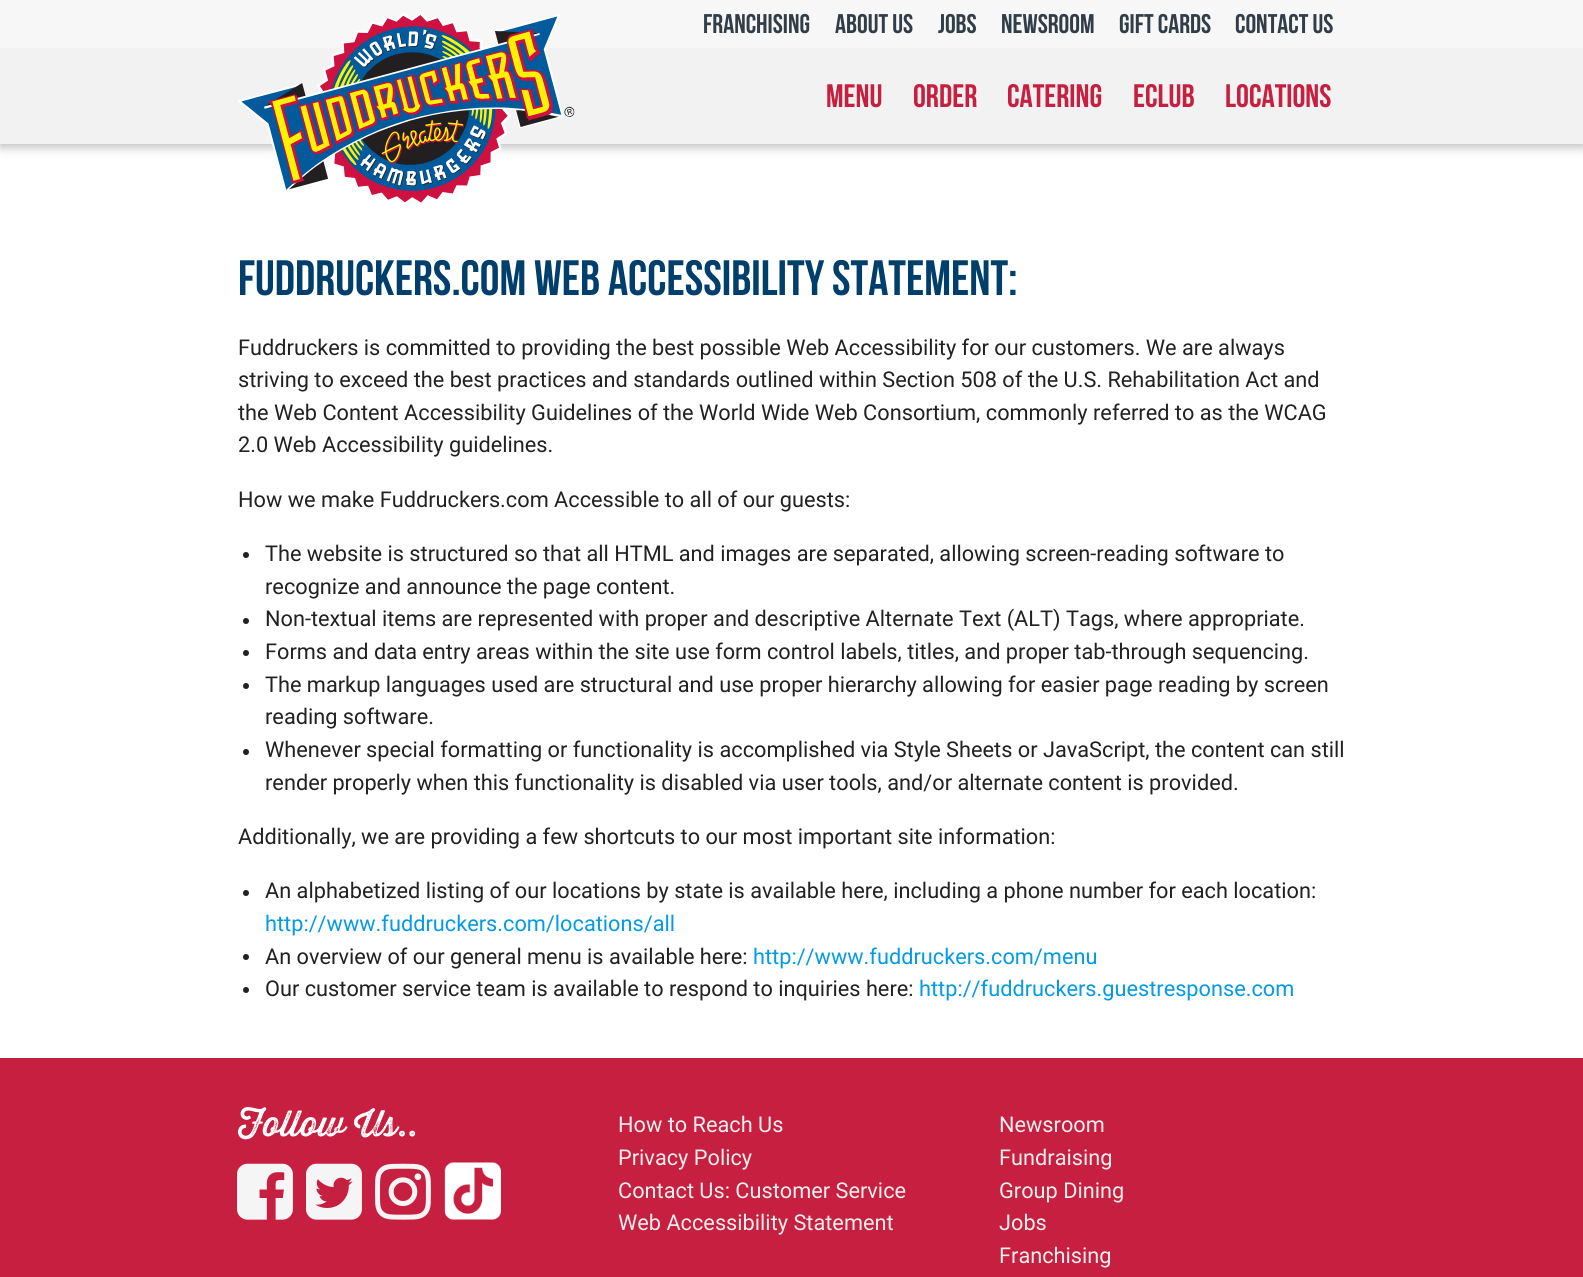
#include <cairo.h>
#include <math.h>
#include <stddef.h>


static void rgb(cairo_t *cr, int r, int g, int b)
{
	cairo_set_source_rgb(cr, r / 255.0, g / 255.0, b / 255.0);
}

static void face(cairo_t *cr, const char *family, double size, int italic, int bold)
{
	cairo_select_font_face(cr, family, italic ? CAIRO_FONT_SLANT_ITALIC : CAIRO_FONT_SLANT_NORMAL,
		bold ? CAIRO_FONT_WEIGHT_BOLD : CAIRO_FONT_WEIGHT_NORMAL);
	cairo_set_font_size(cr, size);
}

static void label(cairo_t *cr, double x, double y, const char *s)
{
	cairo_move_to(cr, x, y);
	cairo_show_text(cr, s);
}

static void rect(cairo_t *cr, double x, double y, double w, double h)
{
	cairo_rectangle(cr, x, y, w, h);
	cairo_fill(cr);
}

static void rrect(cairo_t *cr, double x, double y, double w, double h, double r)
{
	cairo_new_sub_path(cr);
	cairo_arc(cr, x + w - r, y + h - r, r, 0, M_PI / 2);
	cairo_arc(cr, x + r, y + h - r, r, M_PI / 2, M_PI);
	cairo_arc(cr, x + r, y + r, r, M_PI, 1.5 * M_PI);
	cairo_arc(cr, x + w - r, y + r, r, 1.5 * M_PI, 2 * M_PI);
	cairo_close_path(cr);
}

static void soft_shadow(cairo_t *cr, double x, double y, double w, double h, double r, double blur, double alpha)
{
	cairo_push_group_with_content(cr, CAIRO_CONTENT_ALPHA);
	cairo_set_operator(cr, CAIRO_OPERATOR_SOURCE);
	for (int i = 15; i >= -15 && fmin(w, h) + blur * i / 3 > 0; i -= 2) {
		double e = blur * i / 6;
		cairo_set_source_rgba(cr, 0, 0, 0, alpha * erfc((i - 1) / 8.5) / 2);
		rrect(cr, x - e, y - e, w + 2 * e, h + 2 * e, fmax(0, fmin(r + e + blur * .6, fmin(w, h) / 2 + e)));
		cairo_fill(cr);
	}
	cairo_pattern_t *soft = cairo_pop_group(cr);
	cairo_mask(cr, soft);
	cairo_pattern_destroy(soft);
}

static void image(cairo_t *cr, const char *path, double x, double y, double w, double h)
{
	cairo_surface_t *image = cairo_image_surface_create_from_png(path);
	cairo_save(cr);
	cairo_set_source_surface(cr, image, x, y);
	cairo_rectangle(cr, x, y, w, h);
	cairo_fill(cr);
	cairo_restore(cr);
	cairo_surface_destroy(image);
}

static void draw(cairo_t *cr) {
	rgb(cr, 255, 255, 255);
	cairo_paint(cr);
	rgb(cr, 0, 0, 0);
	soft_shadow(cr, 0, 3, 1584, 144, 0, 7.5, 0.12);
	soft_shadow(cr, 0, 3, 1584, 144, 0, 4, 0.16);
	rgb(cr, 242, 242, 242);
	rect(cr, 0, 48, 1583, 96);
	rgb(cr, 247, 247, 247);
	rect(cr, 0, 0, 1583, 48);
	face(cr, "Bebas Neue", 27, 0, 1);
	rgb(cr, 49, 62, 73);
	label(cr, 703, 33, "franchising");
	label(cr, 835, 33, "about us");
	label(cr, 938, 33, "jobs");
	label(cr, 1001, 33, "newsroom");
	label(cr, 1119, 33, "gift cards");
	label(cr, 1235, 33, "contact us");
	image(cr, "image0.png", 237, 12, 338, 191);
	face(cr, "Bebas Neue", 32.5, 0, 1);
	rgb(cr, 199, 31, 63);
	label(cr, 826, 107, "menu");
	label(cr, 913, 107, "order");
	label(cr, 1007, 107, "catering");
	label(cr, 1133, 107, "eclub");
	label(cr, 1225, 107, "locations");
	face(cr, "Bebas Neue", 49.6, 0, 1);
	rgb(cr, 0, 62, 108);
	label(cr, 238, 295, "Fuddruckers.com Web Accessibility Statement:");
	face(cr, "Roboto", 21.75, 0, 0);
	rgb(cr, 33, 33, 33);
	label(cr, 238, 355, "Fuddruckers is committed to providing the best possible Web Accessibility for our customers. We are always");
	label(cr, 238, 387, "striving to exceed the best practices and standards outlined within Section 508 of the U.S. Rehabilitation Act and");
	label(cr, 238, 420, "the Web Content Accessibility Guidelines of the World Wide Web Consortium, commonly referred to as the WCAG");
	label(cr, 238, 452, "2.0 Web Accessibility guidelines.");
	label(cr, 238, 507, "How we make Fuddruckers.com Accessible to all of our guests:");
	cairo_new_path(cr);
	cairo_arc(cr, 246, 555, 3, 0, 2 * M_PI);
	cairo_fill(cr);
	label(cr, 265, 561, "The website is structured so that all HTML and images are separated, allowing screen-reading software to");
	label(cr, 265, 594, "recognize and announce the page content.");
	cairo_new_path(cr);
	cairo_arc(cr, 246, 621, 3, 0, 2 * M_PI);
	cairo_fill(cr);
	label(cr, 265, 626, "Non-textual items are represented with proper and descriptive Alternate Text (ALT) Tags, where appropriate.");
	cairo_new_path(cr);
	cairo_arc(cr, 246, 653, 3, 0, 2 * M_PI);
	cairo_fill(cr);
	label(cr, 265, 659, "Forms and data entry areas within the site use form control labels, titles, and proper tab-through sequencing.");
	cairo_new_path(cr);
	cairo_arc(cr, 246, 686, 3, 0, 2 * M_PI);
	cairo_fill(cr);
	label(cr, 265, 692, "The markup languages used are structural and use proper hierarchy allowing for easier page reading by screen");
	label(cr, 265, 724, "reading software.");
	cairo_new_path(cr);
	cairo_arc(cr, 246, 752, 3, 0, 2 * M_PI);
	cairo_fill(cr);
	label(cr, 265, 757, "Whenever special formatting or functionality is accomplished via Style Sheets or JavaScript, the content can still");
	label(cr, 265, 790, "render properly when this functionality is disabled via user tools, and/or alternate content is provided.");
	label(cr, 238, 844, "Additionally, we are providing a few shortcuts to our most important site information:");
	cairo_new_path(cr);
	cairo_arc(cr, 246, 893, 3, 0, 2 * M_PI);
	cairo_fill(cr);
	label(cr, 265, 898, "An alphabetized listing of our locations by state is available here, including a phone number for each location:");
	rgb(cr, 3, 155, 229);
	label(cr, 265, 931, "http://www.fuddruckers.com/locations/all");
	rgb(cr, 33, 33, 33);
	cairo_new_path(cr);
	cairo_arc(cr, 246, 957, 3, 0, 2 * M_PI);
	cairo_fill(cr);
	label(cr, 265, 964, "An overview of our general menu is available here:");
	rgb(cr, 3, 155, 229);
	label(cr, 753, 964, "http://www.fuddruckers.com/menu");
	rgb(cr, 33, 33, 33);
	cairo_new_path(cr);
	cairo_arc(cr, 246, 990, 3, 0, 2 * M_PI);
	cairo_fill(cr);
	label(cr, 265, 996, "Our customer service team is available to respond to inquiries here:");
	rgb(cr, 3, 155, 229);
	label(cr, 919, 996, "http://fuddruckers.guestresponse.com");
	rgb(cr, 199, 31, 63);
	rect(cr, 0, 1058, 1583, 219);
	face(cr, "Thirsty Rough", 35.5, 0, 0);
	rgb(cr, 255, 255, 255);
	label(cr, 238, 1136, "Follow Us..");
	image(cr, "image1.png", 237, 1163, 56, 57);
	image(cr, "image2.png", 306, 1163, 56, 57);
	image(cr, "image3.png", 375, 1163, 56, 57);
	image(cr, "image4.png", 444, 1162, 57, 58);
	face(cr, "Roboto", 21.75, 0, 0);
	rgb(cr, 238, 238, 238);
	label(cr, 618, 1132, "How to Reach Us");
	label(cr, 618, 1165, "Privacy Policy");
	label(cr, 618, 1198, "Contact Us: Customer Service");
	label(cr, 618, 1230, "Web Accessibility Statement");
	label(cr, 999, 1132, "Newsroom");
	label(cr, 999, 1165, "Fundraising");
	label(cr, 999, 1198, "Group Dining");
	label(cr, 999, 1230, "Jobs");
	label(cr, 999, 1263, "Franchising");
}

int main(void) {
	cairo_surface_t *surface = cairo_image_surface_create(CAIRO_FORMAT_RGB24, 1583, 1277);
	cairo_t *cr = cairo_create(surface);
	cairo_font_options_t *options = cairo_font_options_create();
	cairo_font_options_set_hint_metrics(options, CAIRO_HINT_METRICS_OFF);
	cairo_font_options_set_hint_style(options, CAIRO_HINT_STYLE_NONE);
	cairo_set_font_options(cr, options);
	cairo_set_miter_limit(cr, 4);
	draw(cr);
	cairo_surface_write_to_png(surface, "render.png");
	cairo_font_options_destroy(options);
	cairo_destroy(cr);
	cairo_surface_destroy(surface);
	return 0;
}
